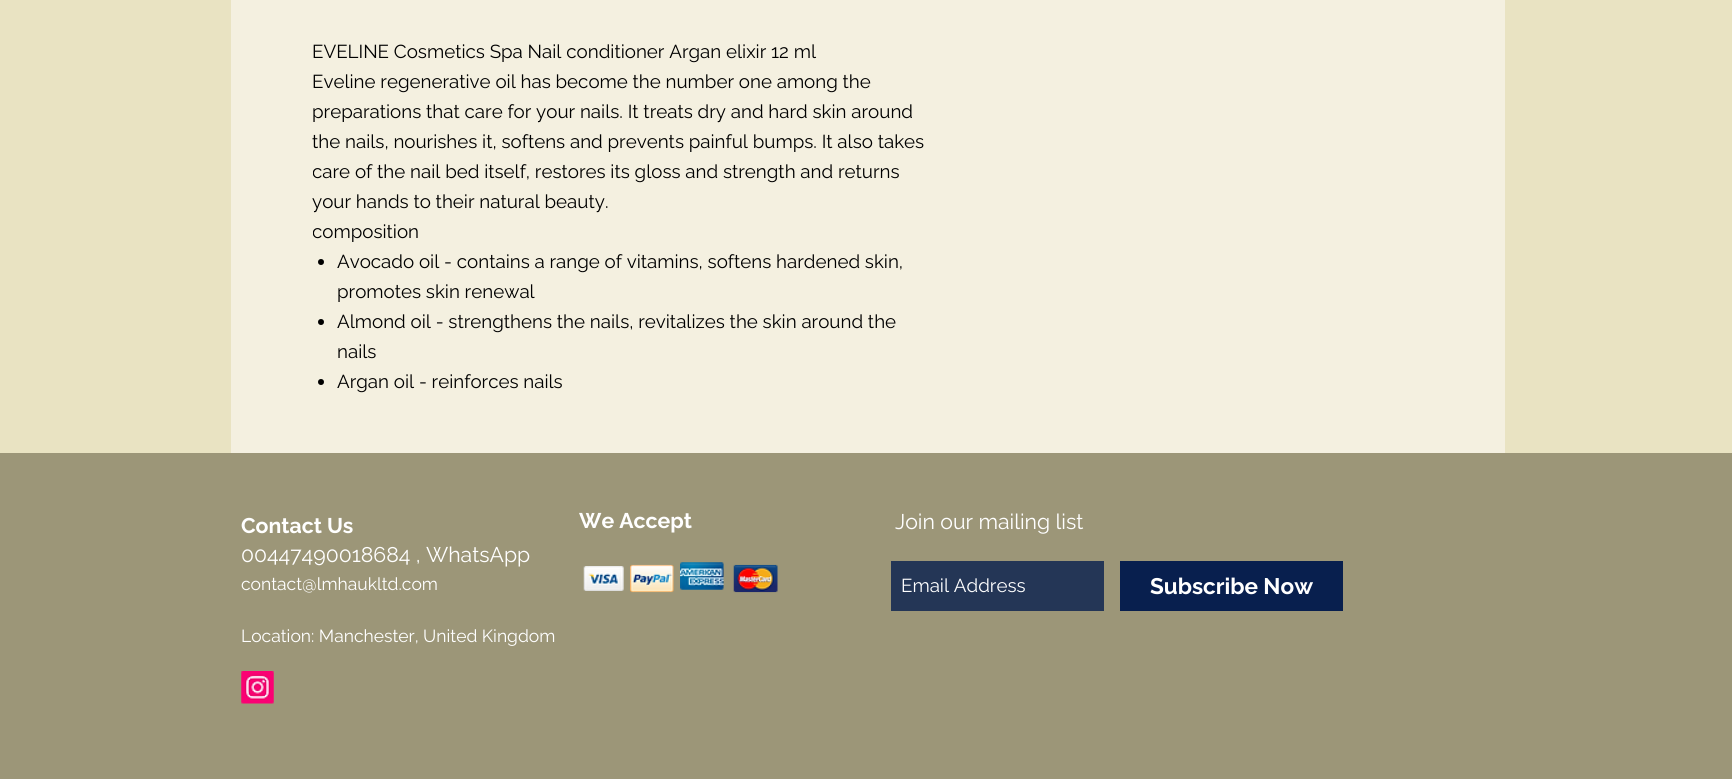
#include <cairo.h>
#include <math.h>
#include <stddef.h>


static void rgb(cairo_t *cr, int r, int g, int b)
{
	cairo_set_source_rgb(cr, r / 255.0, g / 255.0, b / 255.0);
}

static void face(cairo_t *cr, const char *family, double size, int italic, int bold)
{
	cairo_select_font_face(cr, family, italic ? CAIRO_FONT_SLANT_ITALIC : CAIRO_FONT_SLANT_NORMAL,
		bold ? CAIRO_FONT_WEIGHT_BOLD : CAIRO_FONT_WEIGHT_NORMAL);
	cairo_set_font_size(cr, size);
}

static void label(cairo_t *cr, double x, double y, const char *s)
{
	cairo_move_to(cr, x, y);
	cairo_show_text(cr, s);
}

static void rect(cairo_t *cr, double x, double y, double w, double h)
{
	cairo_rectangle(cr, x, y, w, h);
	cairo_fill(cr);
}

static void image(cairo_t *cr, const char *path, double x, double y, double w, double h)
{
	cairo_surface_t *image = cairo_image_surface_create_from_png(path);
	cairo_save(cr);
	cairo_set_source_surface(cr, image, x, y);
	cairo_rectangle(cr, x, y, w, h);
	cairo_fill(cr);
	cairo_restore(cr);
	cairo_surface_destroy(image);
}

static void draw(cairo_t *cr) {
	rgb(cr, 233, 227, 194);
	cairo_paint(cr);
	rgb(cr, 244, 240, 224);
	rect(cr, 231, 0, 1274, 453);
	face(cr, "Raleway", 18.75, 0, 0);
	rgb(cr, 0, 0, 0);
	label(cr, 312, 58, "EVELINE Cosmetics Spa Nail conditioner Argan elixir 12 ml");
	label(cr, 312, 88, "Eveline regenerative oil has become the number one among the");
	label(cr, 312, 118, "preparations that care for your nails. It treats dry and hard skin around");
	label(cr, 312, 148, "the nails, nourishes it, softens and prevents painful bumps. It also takes");
	cairo_save(cr);
	cairo_rectangle(cr, 313, 0, 625, 396);
	cairo_clip(cr);
	label(cr, 312, 178, "care of the nail bed itself, restores its gloss and strength and returns");
	cairo_restore(cr);
	label(cr, 312, 208, "your hands to their natural beauty.");
	cairo_save(cr);
	cairo_rectangle(cr, 313, 0, 625, 396);
	cairo_clip(cr);
	label(cr, 312, 238, "composition");
	cairo_restore(cr);
	cairo_new_path(cr);
	cairo_arc(cr, 321, 262, 3, 0, 2 * M_PI);
	cairo_fill(cr);
	label(cr, 337, 268, "Avocado oil - contains a range of vitamins, softens hardened skin,");
	label(cr, 337, 298, "promotes skin renewal");
	cairo_new_path(cr);
	cairo_arc(cr, 321, 322, 3, 0, 2 * M_PI);
	cairo_fill(cr);
	label(cr, 337, 328, "Almond oil - strengthens the nails, revitalizes the skin around the");
	label(cr, 337, 358, "nails");
	cairo_new_path(cr);
	cairo_arc(cr, 321, 382, 3, 0, 2 * M_PI);
	cairo_fill(cr);
	label(cr, 337, 388, "Argan oil - reinforces nails");
	rgb(cr, 156, 150, 120);
	rect(cr, 0, 453, 1732, 326);
	face(cr, "Raleway", 21.25, 0, 1);
	rgb(cr, 255, 255, 255);
	label(cr, 241, 533, "Contact Us");
	face(cr, "Raleway", 21.25, 0, 0);
	label(cr, 241, 562, "00447490018684 , WhatsApp");
	face(cr, "Raleway", 17.5, 0, 0);
	label(cr, 241, 590, "contact@lmhaukltd.com");
	label(cr, 241, 642, "Location: Manchester, United Kingdom");
	face(cr, "Raleway", 21.25, 0, 1);
	label(cr, 579, 528, "We Accept");
	image(cr, "image0.png", 680, 562, 44, 28);
	face(cr, "Raleway", 21.25, 0, 0);
	label(cr, 895, 529, "Join our mailing list");
	rgb(cr, 36, 54, 86);
	rect(cr, 891, 561, 213, 50);
	face(cr, "Raleway", 18.75, 0, 0);
	rgb(cr, 255, 255, 255);
	label(cr, 901, 592, "Email Address");
	rgb(cr, 8, 31, 78);
	rect(cr, 1120, 561, 223, 50);
	face(cr, "Raleway", 22.5, 0, 1);
	rgb(cr, 255, 255, 255);
	label(cr, 1150, 594, "Subscribe Now");
	image(cr, "image1.png", 583, 566, 41, 25);
	image(cr, "image2.png", 630, 564, 44, 29);
	image(cr, "image3.png", 733, 564, 45, 29);
	image(cr, "image4.png", 241, 671, 33, 33);
}

int main(void) {
	cairo_surface_t *surface = cairo_image_surface_create(CAIRO_FORMAT_RGB24, 1732, 779);
	cairo_t *cr = cairo_create(surface);
	cairo_font_options_t *options = cairo_font_options_create();
	cairo_font_options_set_hint_metrics(options, CAIRO_HINT_METRICS_OFF);
	cairo_font_options_set_hint_style(options, CAIRO_HINT_STYLE_NONE);
	cairo_set_font_options(cr, options);
	cairo_set_miter_limit(cr, 4);
	draw(cr);
	cairo_surface_write_to_png(surface, "render.png");
	cairo_font_options_destroy(options);
	cairo_destroy(cr);
	cairo_surface_destroy(surface);
	return 0;
}
